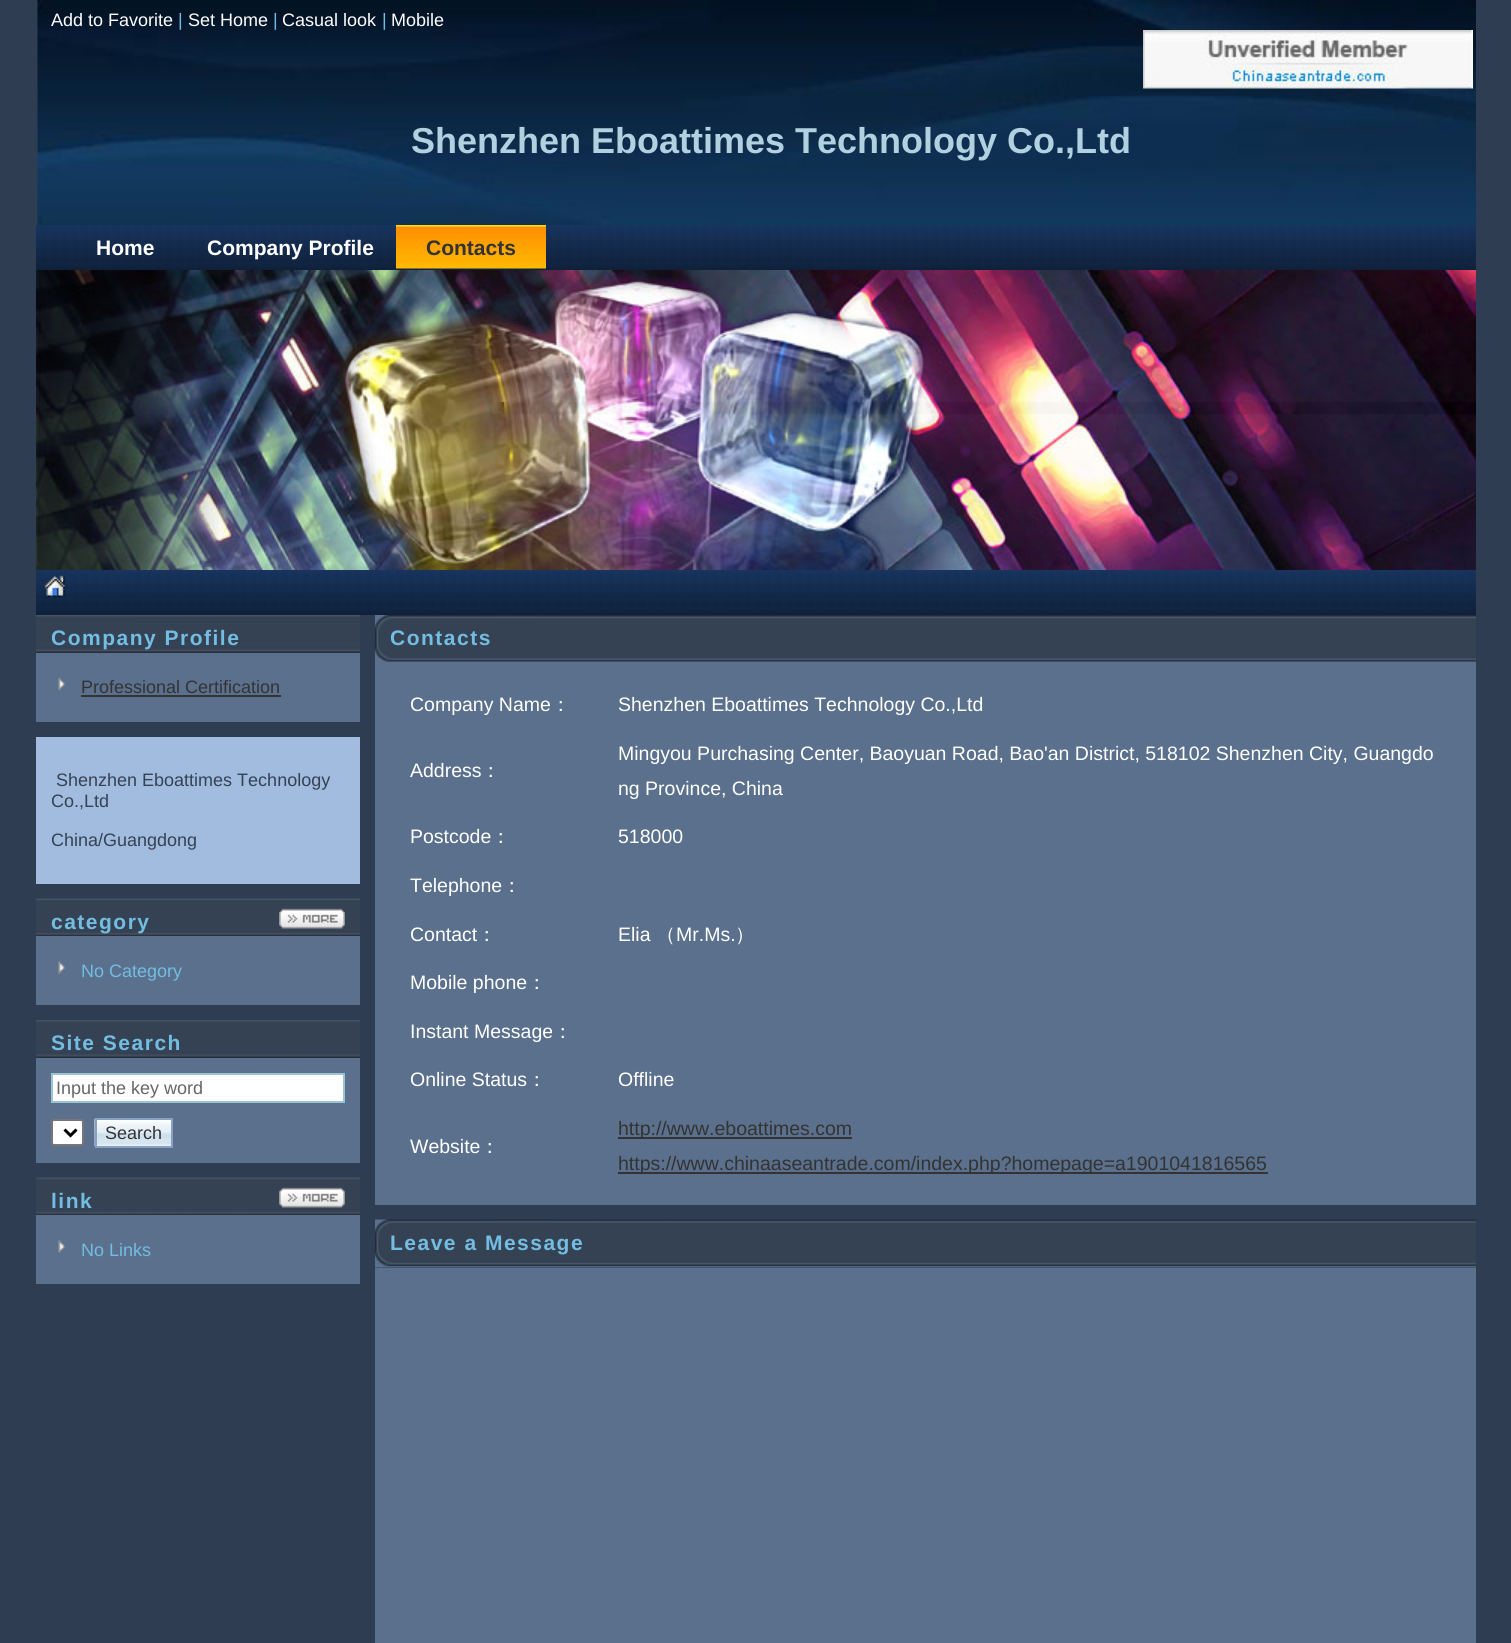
#include <cairo.h>
#include <math.h>
#include <stddef.h>


static void rgb(cairo_t *cr, int r, int g, int b)
{
	cairo_set_source_rgb(cr, r / 255.0, g / 255.0, b / 255.0);
}

static void face(cairo_t *cr, const char *family, double size, int italic, int bold)
{
	cairo_select_font_face(cr, family, italic ? CAIRO_FONT_SLANT_ITALIC : CAIRO_FONT_SLANT_NORMAL,
		bold ? CAIRO_FONT_WEIGHT_BOLD : CAIRO_FONT_WEIGHT_NORMAL);
	cairo_set_font_size(cr, size);
}

static void label(cairo_t *cr, double x, double y, const char *s)
{
	cairo_move_to(cr, x, y);
	cairo_show_text(cr, s);
}

static void tracked(cairo_t *cr, double x, double y, const char *s, double letter, double word)
{
	cairo_move_to(cr, x, y);
	while (*s) {
		char ch[5] = {0};
		int n = 0;
		do ch[n++] = *s++; while ((*s & 0xC0) == 0x80);
		cairo_show_text(cr, ch);
		cairo_rel_move_to(cr, letter + word * (*ch == ' '), 0);
	}
}

static void rect(cairo_t *cr, double x, double y, double w, double h)
{
	cairo_rectangle(cr, x, y, w, h);
	cairo_fill(cr);
}

static void rrect(cairo_t *cr, double x, double y, double w, double h, double r)
{
	cairo_new_sub_path(cr);
	cairo_arc(cr, x + w - r, y + h - r, r, 0, M_PI / 2);
	cairo_arc(cr, x + r, y + h - r, r, M_PI / 2, M_PI);
	cairo_arc(cr, x + r, y + r, r, M_PI, 1.5 * M_PI);
	cairo_arc(cr, x + w - r, y + r, r, 1.5 * M_PI, 2 * M_PI);
	cairo_close_path(cr);
}

static void image(cairo_t *cr, const char *path, double x, double y, double w, double h)
{
	cairo_surface_t *image = cairo_image_surface_create_from_png(path);
	cairo_save(cr);
	cairo_set_source_surface(cr, image, x, y);
	cairo_rectangle(cr, x, y, w, h);
	cairo_fill(cr);
	cairo_restore(cr);
	cairo_surface_destroy(image);
}

static void draw(cairo_t *cr) {
	rgb(cr, 46, 61, 82);
	cairo_paint(cr);
	image(cr, "image0.png", 37, 0, 1439, 225);
	face(cr, "Liberation Sans", 18, 0, 0);
	rgb(cr, 255, 255, 255);
	label(cr, 51, 26, "Add to Favorite");
	rgb(cr, 115, 189, 226);
	label(cr, 178, 26, "|");
	rgb(cr, 255, 255, 255);
	label(cr, 188, 26, "Set Home");
	rgb(cr, 115, 189, 226);
	label(cr, 273, 26, "|");
	rgb(cr, 255, 255, 255);
	label(cr, 282, 26, "Casual look");
	rgb(cr, 115, 189, 226);
	label(cr, 382, 26, "|");
	rgb(cr, 255, 255, 255);
	label(cr, 391, 26, "Mobile");
	image(cr, "image1.png", 1143, 30, 330, 59);
	face(cr, "Liberation Sans", 36, 0, 1);
	rgb(cr, 177, 208, 224);
	label(cr, 411, 153, "Shenzhen Eboattimes Technology Co.,Ltd");
	image(cr, "image2.png", 36, 225, 1440, 45);
	face(cr, "Liberation Sans", 21, 0, 1);
	rgb(cr, 255, 255, 255);
	label(cr, 96, 255, "Home");
	label(cr, 207, 255, "Company Profile");
	image(cr, "image3.png", 396, 225, 150, 44);
	rgb(cr, 51, 51, 51);
	label(cr, 426, 255, "Contacts");
	image(cr, "image4.png", 36, 270, 1440, 300);
	image(cr, "image5.png", 36, 570, 1440, 45);
	image(cr, "image6.png", 44, 575, 22, 23);
	image(cr, "image7.png", 36, 615, 324, 38);
	rgb(cr, 115, 189, 226);
	tracked(cr, 51, 645, "Company Profile", 1.5, 0);
	rgb(cr, 90, 112, 140);
	rect(cr, 36, 653, 324, 69);
	image(cr, "image8.png", 58, 678, 7, 12);
	face(cr, "Liberation Sans", 18, 0, 0);
	rgb(cr, 51, 51, 51);
	label(cr, 81, 693, "Professional Certification");
	rect(cr, 81, 695, 200, 2);
	rgb(cr, 161, 188, 223);
	rect(cr, 36, 737, 324, 147);
	rgb(cr, 53, 66, 83);
	label(cr, 56, 786, "Shenzhen Eboattimes Technology");
	label(cr, 51, 807, "Co.,Ltd");
	label(cr, 51, 846, "China/Guangdong");
	image(cr, "image9.png", 36, 898, 324, 38);
	face(cr, "Liberation Sans", 21, 0, 1);
	rgb(cr, 115, 189, 226);
	tracked(cr, 51, 929, "category", 1.5, 0);
	image(cr, "image10.png", 279, 908, 66, 21);
	rgb(cr, 90, 112, 140);
	rect(cr, 36, 936, 324, 69);
	image(cr, "image11.png", 58, 961, 7, 13);
	face(cr, "Liberation Sans", 18, 0, 0);
	rgb(cr, 115, 189, 226);
	label(cr, 81, 977, "No Category");
	image(cr, "image12.png", 36, 1020, 324, 38);
	face(cr, "Liberation Sans", 21, 0, 1);
	tracked(cr, 51, 1050, "Site Search", 1.5, 0);
	rgb(cr, 90, 112, 140);
	rect(cr, 36, 1058, 324, 105);
	rgb(cr, 255, 255, 255);
	cairo_rectangle(cr, 52, 1074, 292, 28);
	cairo_fill_preserve(cr);
	rgb(cr, 153, 196, 213);
	cairo_stroke(cr);
	face(cr, "Liberation Sans", 18, 0, 0);
	rgb(cr, 102, 102, 102);
	label(cr, 56, 1094, "Input the key word");
	rgb(cr, 255, 255, 255);
	rrect(cr, 52, 1120, 31, 25, 2);
	cairo_fill_preserve(cr);
	rgb(cr, 118, 118, 118);
	cairo_stroke(cr);
	cairo_new_path(cr);
	cairo_move_to(cr, 64.5, 1129.5);
	cairo_line_to(cr, 70.5, 1135.5);
	cairo_line_to(cr, 76.5, 1129.5);
	rgb(cr, 0, 0, 0);
	cairo_set_line_width(cr, 3);
	cairo_stroke(cr);
	image(cr, "image13.png", 94, 1119, 77, 27);
	cairo_rectangle(cr, 96, 1119, 76, 28);
	rgb(cr, 134, 162, 192);
	cairo_set_line_width(cr, 2);
	cairo_stroke(cr);
	rgb(cr, 51, 51, 51);
	label(cr, 105, 1139, "Search");
	image(cr, "image14.png", 36, 1177, 324, 38);
	face(cr, "Liberation Sans", 21, 0, 1);
	rgb(cr, 115, 189, 226);
	tracked(cr, 51, 1208, "link", 1.5, 0);
	image(cr, "image15.png", 279, 1187, 66, 21);
	rgb(cr, 90, 112, 140);
	rect(cr, 36, 1215, 324, 69);
	image(cr, "image11.png", 58, 1240, 7, 13);
	face(cr, "Liberation Sans", 18, 0, 0);
	rgb(cr, 115, 189, 226);
	label(cr, 81, 1256, "No Links");
	image(cr, "image16.png", 375, 615, 1101, 48);
	face(cr, "Liberation Sans", 21, 0, 1);
	tracked(cr, 390, 645, "Contacts", 1.5, 0);
	rgb(cr, 90, 112, 140);
	rect(cr, 375, 663, 1101, 542);
	face(cr, "Liberation Sans", 19.5, 0, 0);
	rgb(cr, 255, 255, 255);
	label(cr, 410, 711, "Company Name");
	face(cr, "WenQuanYi Zen Hei Medium", 19.5, 0, 0);
	label(cr, 551, 711, "：");
	face(cr, "Liberation Sans", 19.5, 0, 0);
	label(cr, 618, 711, "Shenzhen Eboattimes Technology Co.,Ltd");
	label(cr, 410, 777, "Address");
	face(cr, "WenQuanYi Zen Hei Medium", 19.5, 0, 0);
	label(cr, 481, 777, "：");
	face(cr, "Liberation Sans", 19.5, 0, 0);
	label(cr, 618, 760, "Mingyou Purchasing Center, Baoyuan Road, Bao'an District, 518102 Shenzhen City, Guangdo");
	label(cr, 618, 795, "ng Province, China");
	label(cr, 410, 843, "Postcode");
	face(cr, "WenQuanYi Zen Hei Medium", 19.5, 0, 0);
	label(cr, 491, 843, "：");
	face(cr, "Liberation Sans", 19.5, 0, 0);
	label(cr, 618, 843, "518000");
	label(cr, 410, 892, "Telephone");
	face(cr, "WenQuanYi Zen Hei Medium", 19.5, 0, 0);
	label(cr, 502, 892, "：");
	face(cr, "Liberation Sans", 19.5, 0, 0);
	label(cr, 410, 941, "Contact");
	face(cr, "WenQuanYi Zen Hei Medium", 19.5, 0, 0);
	label(cr, 477, 941, "：");
	face(cr, "Liberation Sans", 19.5, 0, 0);
	label(cr, 618, 941, "Elia");
	face(cr, "WenQuanYi Zen Hei Medium", 19.5, 0, 0);
	label(cr, 656, 941, "（");
	face(cr, "Liberation Sans", 19.5, 0, 0);
	label(cr, 676, 941, "Mr.Ms.");
	face(cr, "WenQuanYi Zen Hei Medium", 19.5, 0, 0);
	label(cr, 735, 941, "）");
	face(cr, "Liberation Sans", 19.5, 0, 0);
	label(cr, 410, 989, "Mobile phone");
	face(cr, "WenQuanYi Zen Hei Medium", 19.5, 0, 0);
	label(cr, 527, 989, "：");
	face(cr, "Liberation Sans", 19.5, 0, 0);
	label(cr, 410, 1038, "Instant Message");
	face(cr, "WenQuanYi Zen Hei Medium", 19.5, 0, 0);
	label(cr, 553, 1038, "：");
	face(cr, "Liberation Sans", 19.5, 0, 0);
	label(cr, 410, 1086, "Online Status");
	face(cr, "WenQuanYi Zen Hei Medium", 19.5, 0, 0);
	label(cr, 527, 1086, "：");
	face(cr, "Liberation Sans", 19.5, 0, 0);
	label(cr, 618, 1086, "Offline");
	label(cr, 410, 1153, "Website");
	face(cr, "WenQuanYi Zen Hei Medium", 19.5, 0, 0);
	label(cr, 480, 1153, "：");
	rgb(cr, 51, 51, 51);
	rect(cr, 618, 1137, 234, 2);
	face(cr, "Liberation Sans", 19.5, 0, 0);
	label(cr, 618, 1135, "http://www.eboattimes.com");
	rect(cr, 618, 1172, 650, 2);
	label(cr, 618, 1170, "https://www.chinaaseantrade.com/index.php?homepage=a1901041816565");
	image(cr, "image17.png", 375, 1219, 1101, 49);
	face(cr, "Liberation Sans", 21, 0, 1);
	rgb(cr, 115, 189, 226);
	tracked(cr, 390, 1250, "Leave a Message", 1.5, 0);
	rgb(cr, 90, 112, 140);
	rect(cr, 375, 1268, 1101, 375);
}

int main(void) {
	cairo_surface_t *surface = cairo_image_surface_create(CAIRO_FORMAT_RGB24, 1511, 1643);
	cairo_t *cr = cairo_create(surface);
	cairo_font_options_t *options = cairo_font_options_create();
	cairo_font_options_set_hint_metrics(options, CAIRO_HINT_METRICS_OFF);
	cairo_font_options_set_hint_style(options, CAIRO_HINT_STYLE_NONE);
	cairo_set_font_options(cr, options);
	cairo_set_miter_limit(cr, 4);
	draw(cr);
	cairo_surface_write_to_png(surface, "render.png");
	cairo_font_options_destroy(options);
	cairo_destroy(cr);
	cairo_surface_destroy(surface);
	return 0;
}
